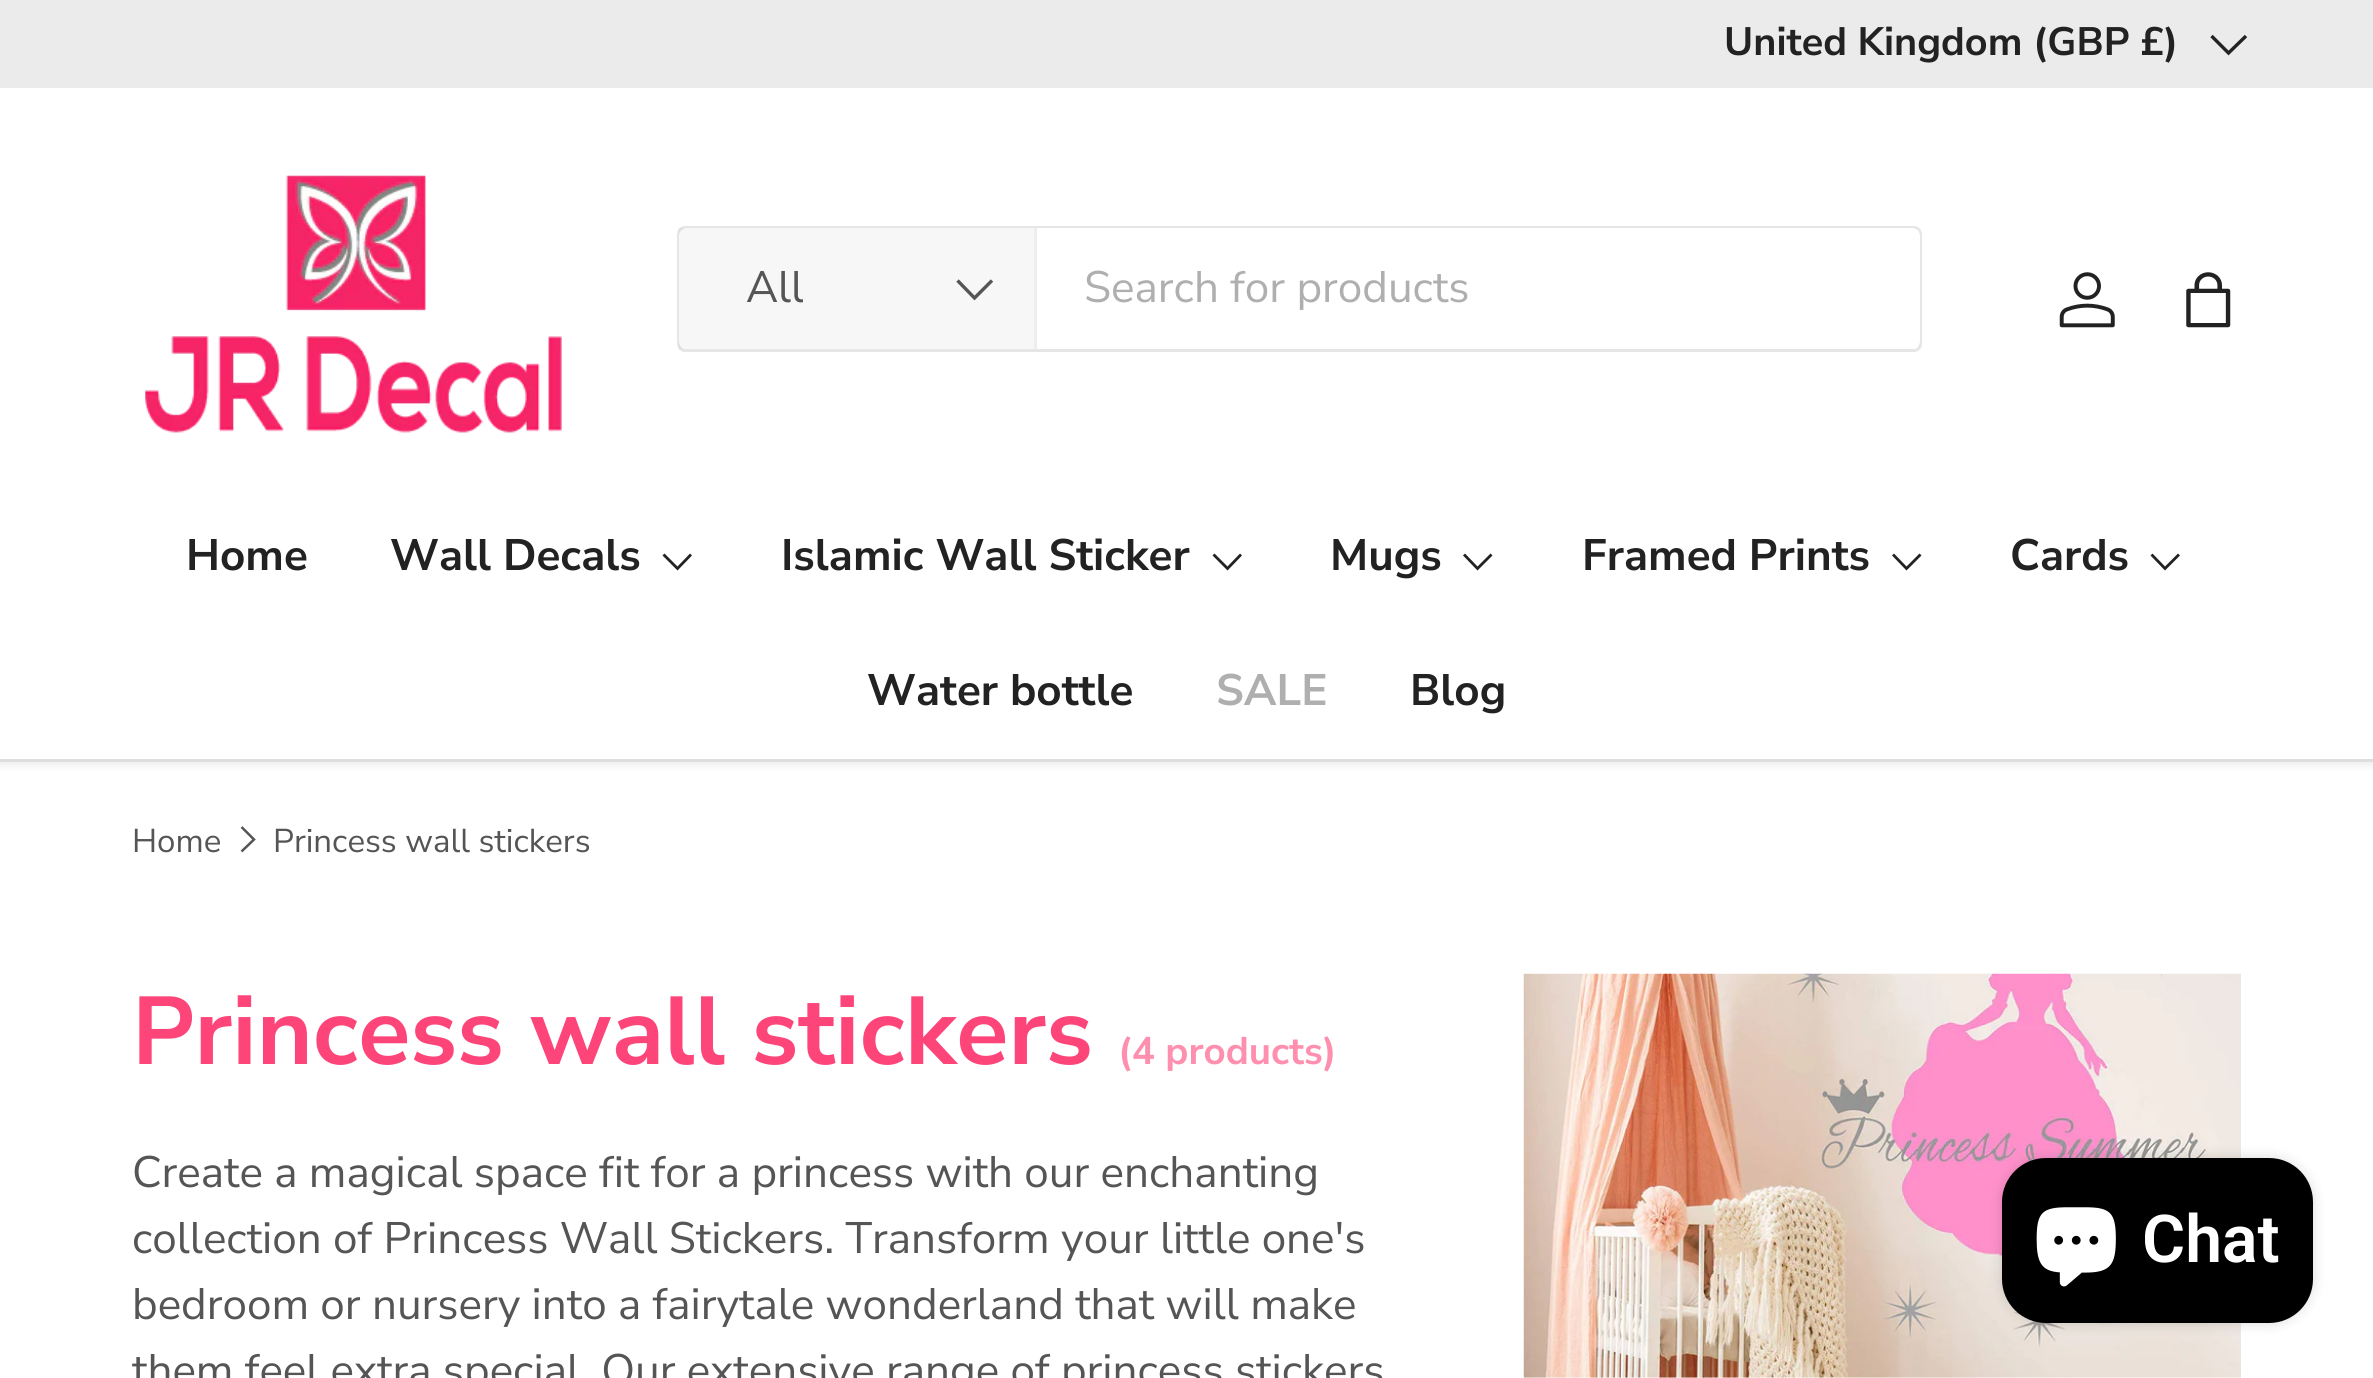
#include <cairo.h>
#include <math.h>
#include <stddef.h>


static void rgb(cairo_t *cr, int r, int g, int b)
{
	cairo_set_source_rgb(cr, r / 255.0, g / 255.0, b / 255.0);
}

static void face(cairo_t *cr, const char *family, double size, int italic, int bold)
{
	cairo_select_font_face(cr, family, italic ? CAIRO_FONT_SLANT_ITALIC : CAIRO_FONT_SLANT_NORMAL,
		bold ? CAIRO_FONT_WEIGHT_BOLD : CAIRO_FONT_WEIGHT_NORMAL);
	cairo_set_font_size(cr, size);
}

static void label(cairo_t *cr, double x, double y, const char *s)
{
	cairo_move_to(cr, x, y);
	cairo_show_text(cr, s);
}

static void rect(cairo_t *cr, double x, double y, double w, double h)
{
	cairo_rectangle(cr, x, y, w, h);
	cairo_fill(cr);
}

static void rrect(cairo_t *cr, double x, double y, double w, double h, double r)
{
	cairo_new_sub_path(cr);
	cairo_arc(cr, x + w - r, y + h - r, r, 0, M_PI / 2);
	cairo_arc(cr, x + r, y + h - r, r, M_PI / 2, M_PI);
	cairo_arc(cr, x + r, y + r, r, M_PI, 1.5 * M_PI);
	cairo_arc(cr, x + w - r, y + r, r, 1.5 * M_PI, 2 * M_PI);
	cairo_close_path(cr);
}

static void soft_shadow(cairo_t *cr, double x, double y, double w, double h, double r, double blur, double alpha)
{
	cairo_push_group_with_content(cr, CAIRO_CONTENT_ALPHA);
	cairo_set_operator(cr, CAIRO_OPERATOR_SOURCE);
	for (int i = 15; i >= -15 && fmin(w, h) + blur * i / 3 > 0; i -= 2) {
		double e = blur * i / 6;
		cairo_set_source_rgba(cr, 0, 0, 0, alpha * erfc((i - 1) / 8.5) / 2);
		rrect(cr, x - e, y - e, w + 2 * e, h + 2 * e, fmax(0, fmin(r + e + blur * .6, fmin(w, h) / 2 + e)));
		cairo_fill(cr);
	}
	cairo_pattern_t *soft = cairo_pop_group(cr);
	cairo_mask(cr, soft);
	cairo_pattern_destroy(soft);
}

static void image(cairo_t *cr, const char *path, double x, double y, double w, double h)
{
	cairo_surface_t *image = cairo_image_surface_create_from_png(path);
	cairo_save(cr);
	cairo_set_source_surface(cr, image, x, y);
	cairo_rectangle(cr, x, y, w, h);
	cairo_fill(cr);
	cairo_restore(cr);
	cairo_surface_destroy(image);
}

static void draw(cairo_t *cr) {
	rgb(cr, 255, 255, 255);
	cairo_paint(cr);
	rgb(cr, 0, 0, 0);
	soft_shadow(cr, -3, 85, 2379, 680, 0, 4, 0.08);
	rgb(cr, 235, 235, 235);
	rect(cr, 0, 0, 2373, 88);
	face(cr, "Nunito Sans", 39.6, 0, 1);
	rgb(cr, 34, 34, 34);
	label(cr, 1724, 55, "United Kingdom (GBP £)");
	cairo_new_path(cr);
	cairo_move_to(cr, 2246, 36);
	cairo_line_to(cr, 2228.5, 53);
	cairo_line_to(cr, 2211.5, 36);
	cairo_set_line_width(cr, 3.4);
	cairo_stroke(cr);
	rgb(cr, 255, 255, 255);
	rect(cr, 0, 88, 2373, 671);
	image(cr, "image0.png", 145, 175, 417, 258);
	rrect(cr, 678.5, 227.5, 1242, 123, 6.5);
	rgb(cr, 230, 230, 230);
	cairo_set_line_width(cr, 3);
	cairo_stroke(cr);
	rgb(cr, 255, 255, 255);
	rrect(cr, 679, 228, 1241, 121, 8);
	cairo_fill(cr);
	cairo_set_source_rgba(cr, 0.333, 0.333, 0.333, 0.05);
	rect(cr, 679, 228, 355, 121);
	rgb(cr, 238, 238, 238);
	rect(cr, 1034, 228, 3, 121);
	cairo_save(cr);
	cairo_rectangle(cr, 745, 256, 58, 66);
	cairo_clip(cr);
	face(cr, "Nunito Sans", 44, 0, 0);
	rgb(cr, 85, 85, 85);
	label(cr, 746, 302, "All");
	cairo_restore(cr);
	cairo_new_path(cr);
	cairo_move_to(cr, 992, 280.5);
	cairo_line_to(cr, 974.5, 298);
	cairo_line_to(cr, 957.5, 280.5);
	rgb(cr, 85, 85, 85);
	cairo_set_line_width(cr, 3.4);
	cairo_stroke(cr);
	face(cr, "Nunito Sans", 44, 0, 0);
	rgb(cr, 175, 175, 175);
	label(cr, 1084, 302, "Search for products");
	image(cr, "image1.png", 2059, 272, 56, 56);
	image(cr, "image2.png", 2186, 272, 45, 56);
	face(cr, "Nunito Sans", 44, 0, 1);
	rgb(cr, 34, 34, 34);
	label(cr, 186, 570, "Home");
	label(cr, 390, 570, "Wall Decals");
	cairo_new_path(cr);
	cairo_move_to(cr, 691, 554.5);
	cairo_line_to(cr, 677.5, 568.5);
	cairo_line_to(cr, 663.5, 554.5);
	cairo_set_line_width(cr, 2.8);
	cairo_stroke(cr);
	label(cr, 781, 570, "Islamic Wall Sticker");
	cairo_new_path(cr);
	cairo_move_to(cr, 1241, 554.5);
	cairo_line_to(cr, 1227.5, 568.5);
	cairo_line_to(cr, 1213.5, 554.5);
	cairo_stroke(cr);
	label(cr, 1330, 570, "Mugs");
	cairo_new_path(cr);
	cairo_move_to(cr, 1491.5, 554.5);
	cairo_line_to(cr, 1477.5, 568.5);
	cairo_line_to(cr, 1464, 554.5);
	cairo_stroke(cr);
	label(cr, 1582, 570, "Framed Prints");
	cairo_new_path(cr);
	cairo_move_to(cr, 1920.5, 554.5);
	cairo_line_to(cr, 1906.5, 568.5);
	cairo_line_to(cr, 1893, 554.5);
	cairo_stroke(cr);
	label(cr, 2010, 570, "Cards");
	cairo_new_path(cr);
	cairo_move_to(cr, 2179, 554.5);
	cairo_line_to(cr, 2165, 568.5);
	cairo_line_to(cr, 2151.5, 554.5);
	cairo_stroke(cr);
	label(cr, 867, 705, "Water bottle");
	rgb(cr, 175, 175, 175);
	label(cr, 1216, 705, "SALE");
	rgb(cr, 34, 34, 34);
	label(cr, 1410, 705, "Blog");
	rgb(cr, 222, 222, 222);
	rect(cr, 0, 759, 2373, 3);
	face(cr, "Nunito Sans", 33, 0, 0);
	rgb(cr, 85, 85, 85);
	label(cr, 132, 852, "Home");
	cairo_new_path(cr);
	cairo_move_to(cr, 241.5, 827);
	cairo_line_to(cr, 254, 839.5);
	cairo_line_to(cr, 241.5, 851.5);
	cairo_set_line_width(cr, 2.5);
	cairo_stroke(cr);
	label(cr, 273, 852, "Princess wall stickers");
	face(cr, "Nunito Sans", 96, 0, 1);
	rgb(cr, 254, 69, 121);
	label(cr, 132, 1064, "Princess wall stickers");
	face(cr, "Nunito Sans", 38.5, 0, 1);
	rgb(cr, 254, 143, 175);
	label(cr, 1118, 1064, "(4 products)");
	face(cr, "Nunito Sans", 44, 0, 0);
	rgb(cr, 85, 85, 85);
	label(cr, 132, 1187, "Create a magical space fit for a princess with our enchanting");
	label(cr, 132, 1253, "collection of Princess Wall Stickers. Transform your little one's");
	label(cr, 132, 1319, "bedroom or nursery into a fairytale wonderland that will make");
	label(cr, 132, 1385, "them feel extra special. Our extensive range of princess stickers");
	image(cr, "image3.png", 1523, 973, 718, 405);
	rgb(cr, 0, 0, 0);
	soft_shadow(cr, 2002, 1158, 311, 165, 44, 7, 0.15);
	rgb(cr, 0, 0, 0);
	rrect(cr, 2002, 1158, 311, 165, 44);
	cairo_fill(cr);
	image(cr, "image4.png", 2036, 1207, 80, 80);
	face(cr, "Roboto SemiBold", 66, 0, 0);
	rgb(cr, 255, 255, 255);
	label(cr, 2142, 1262, "Chat");
}

int main(void) {
	cairo_surface_t *surface = cairo_image_surface_create(CAIRO_FORMAT_RGB24, 2373, 1378);
	cairo_t *cr = cairo_create(surface);
	cairo_font_options_t *options = cairo_font_options_create();
	cairo_font_options_set_hint_metrics(options, CAIRO_HINT_METRICS_OFF);
	cairo_font_options_set_hint_style(options, CAIRO_HINT_STYLE_NONE);
	cairo_set_font_options(cr, options);
	cairo_set_miter_limit(cr, 4);
	draw(cr);
	cairo_surface_write_to_png(surface, "render.png");
	cairo_font_options_destroy(options);
	cairo_destroy(cr);
	cairo_surface_destroy(surface);
	return 0;
}
